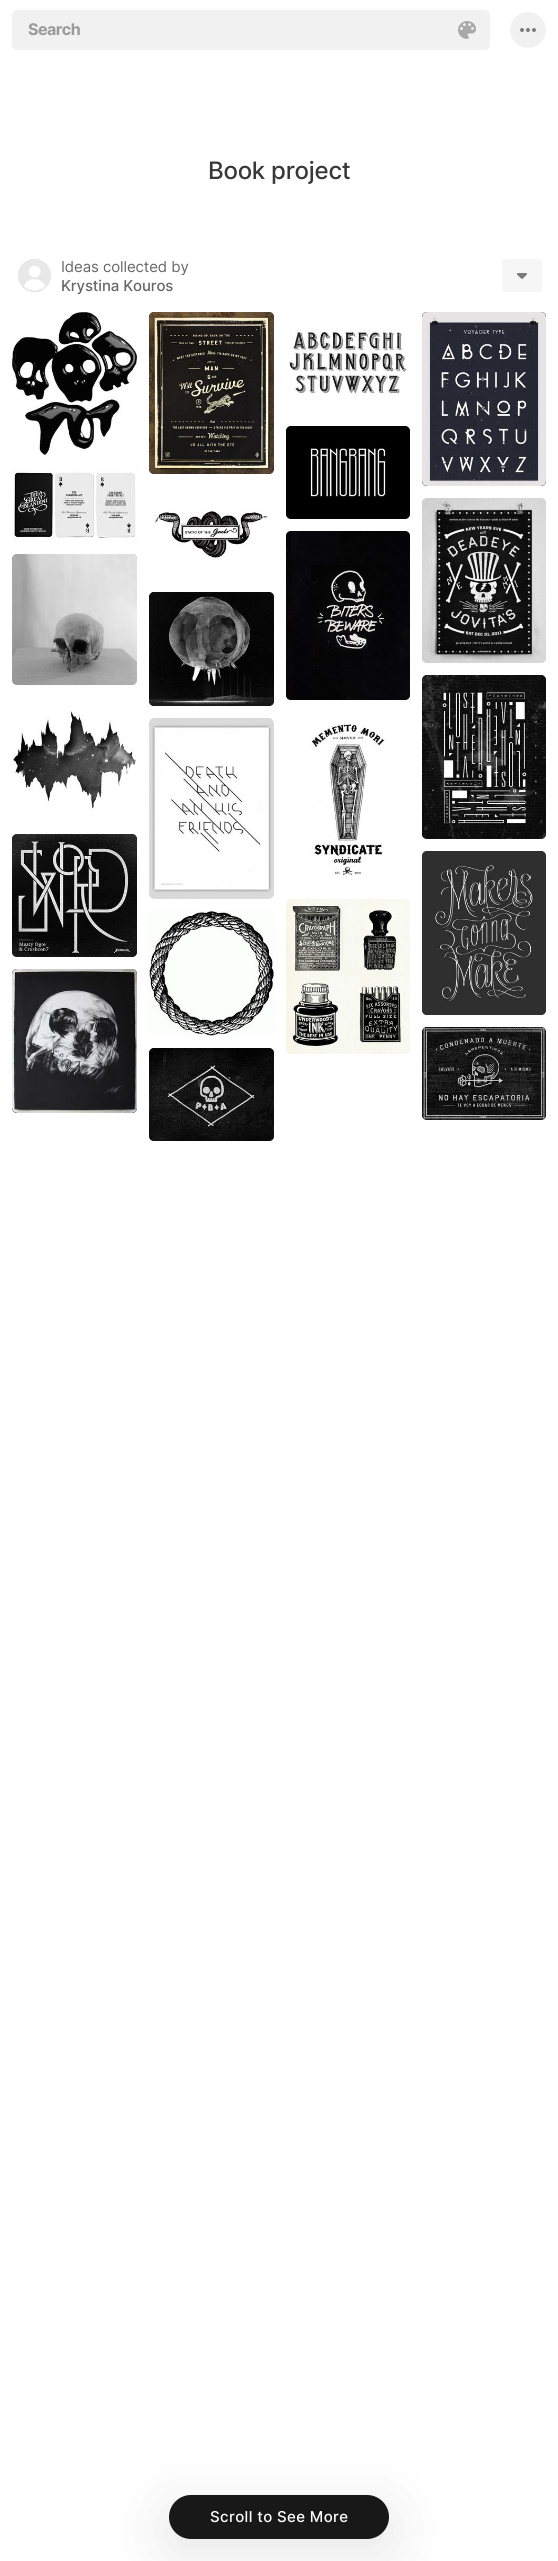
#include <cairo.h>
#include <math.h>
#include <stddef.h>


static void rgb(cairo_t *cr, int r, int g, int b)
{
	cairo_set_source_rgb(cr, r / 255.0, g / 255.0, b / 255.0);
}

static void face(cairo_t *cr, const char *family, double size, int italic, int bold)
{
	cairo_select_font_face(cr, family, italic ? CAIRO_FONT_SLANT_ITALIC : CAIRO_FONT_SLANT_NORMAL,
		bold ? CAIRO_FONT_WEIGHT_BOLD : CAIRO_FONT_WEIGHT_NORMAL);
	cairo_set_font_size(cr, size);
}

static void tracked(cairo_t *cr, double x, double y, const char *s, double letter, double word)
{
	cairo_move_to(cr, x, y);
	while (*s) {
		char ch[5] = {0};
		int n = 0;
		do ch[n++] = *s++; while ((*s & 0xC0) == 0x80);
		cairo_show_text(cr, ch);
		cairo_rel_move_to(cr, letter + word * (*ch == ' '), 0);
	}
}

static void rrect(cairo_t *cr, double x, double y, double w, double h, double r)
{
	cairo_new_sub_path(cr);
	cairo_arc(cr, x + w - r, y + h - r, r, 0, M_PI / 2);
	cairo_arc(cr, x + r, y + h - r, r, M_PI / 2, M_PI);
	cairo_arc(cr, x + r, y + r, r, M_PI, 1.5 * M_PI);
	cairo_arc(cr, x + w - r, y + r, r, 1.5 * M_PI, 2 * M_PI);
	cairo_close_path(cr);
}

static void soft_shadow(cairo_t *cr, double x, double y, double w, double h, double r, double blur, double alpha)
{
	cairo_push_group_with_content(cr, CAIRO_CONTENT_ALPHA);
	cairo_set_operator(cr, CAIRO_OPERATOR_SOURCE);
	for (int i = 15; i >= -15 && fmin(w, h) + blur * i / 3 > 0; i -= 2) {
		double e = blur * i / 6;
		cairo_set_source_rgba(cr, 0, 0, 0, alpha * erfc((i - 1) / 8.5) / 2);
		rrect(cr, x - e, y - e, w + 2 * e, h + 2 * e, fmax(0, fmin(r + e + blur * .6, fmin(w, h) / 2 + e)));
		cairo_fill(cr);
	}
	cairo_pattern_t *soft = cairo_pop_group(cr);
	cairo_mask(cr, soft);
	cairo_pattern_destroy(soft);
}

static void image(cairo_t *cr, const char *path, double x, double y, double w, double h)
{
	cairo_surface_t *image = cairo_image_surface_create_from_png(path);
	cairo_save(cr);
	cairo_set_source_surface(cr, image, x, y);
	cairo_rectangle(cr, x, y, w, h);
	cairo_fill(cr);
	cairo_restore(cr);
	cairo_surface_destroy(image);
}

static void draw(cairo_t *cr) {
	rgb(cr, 255, 255, 255);
	cairo_paint(cr);
	rgb(cr, 241, 241, 241);
	rrect(cr, 12, 10, 478, 40, 5);
	cairo_fill(cr);
	face(cr, "Inter", 16, 0, 1);
	rgb(cr, 154, 154, 154);
	tracked(cr, 28, 35, "Search", -0.5, 0);
	image(cr, "image0.png", 458, 21, 18, 18);
	rgb(cr, 241, 241, 241);
	cairo_arc(cr, 528, 30, 18, 0, 2 * M_PI);
	cairo_fill(cr);
	image(cr, "image1.png", 520, 28, 16, 4);
	face(cr, "Inter Medium", 24, 0, 0);
	rgb(cr, 56, 56, 56);
	tracked(cr, 208, 179, "Book project", -0.25, 0);
	cairo_new_path(cr);
	cairo_arc(cr, 34.5, 275.5, 16, 0, 2 * M_PI);
	cairo_set_source_rgba(cr, 0, 0, 0, 0.1);
	cairo_set_line_width(cr, 1);
	cairo_stroke(cr);
	image(cr, "image2.png", 18, 259, 33, 33);
	face(cr, "Inter", 15, 0, 0);
	rgb(cr, 103, 103, 103);
	tracked(cr, 61, 272, "Ideas collected by", -0.1, 0);
	face(cr, "Inter Medium", 15, 0, 0);
	tracked(cr, 61, 291, "Krystina Kouros", -0.1, 0);
	rgb(cr, 246, 246, 246);
	rrect(cr, 502, 259, 40, 33, 3);
	cairo_fill(cr);
	image(cr, "image3.png", 517, 273, 10, 6);
	image(cr, "image4.png", 12, 312, 125, 143);
	rgb(cr, 27, 24, 22);
	rrect(cr, 149, 312, 125, 162, 5);
	cairo_fill(cr);
	image(cr, "image5.png", 149, 312, 125, 162);
	image(cr, "image6.png", 289, 329, 119, 67);
	rgb(cr, 39, 41, 53);
	rrect(cr, 422, 312, 124, 174, 5);
	cairo_fill(cr);
	image(cr, "image7.png", 422, 312, 124, 174);
	rgb(cr, 231, 232, 231);
	rrect(cr, 12, 467, 125, 75, 5);
	cairo_fill(cr);
	image(cr, "image8.png", 12, 467, 125, 75);
	image(cr, "image9.png", 153, 511, 116, 47);
	rgb(cr, 9, 9, 9);
	rrect(cr, 286, 426, 124, 93, 5);
	cairo_fill(cr);
	image(cr, "image10.png", 286, 426, 124, 93);
	rgb(cr, 212, 212, 212);
	rrect(cr, 422, 498, 124, 165, 5);
	cairo_fill(cr);
	image(cr, "image11.png", 422, 498, 124, 165);
	rgb(cr, 163, 163, 163);
	rrect(cr, 12, 554, 125, 131, 5);
	cairo_fill(cr);
	image(cr, "image12.png", 12, 554, 125, 131);
	rgb(cr, 14, 14, 14);
	rrect(cr, 149, 592, 125, 114, 5);
	cairo_fill(cr);
	image(cr, "image13.png", 149, 592, 125, 114);
	rgb(cr, 12, 12, 13);
	rrect(cr, 286, 531, 124, 169, 5);
	cairo_fill(cr);
	image(cr, "image14.png", 286, 531, 124, 169);
	image(cr, "image15.png", 12, 711, 125, 100);
	image(cr, "image16.png", 149, 718, 125, 181);
	image(cr, "image17.png", 311, 722, 76, 154);
	rgb(cr, 24, 24, 24);
	rrect(cr, 422, 675, 124, 164, 5);
	cairo_fill(cr);
	image(cr, "image18.png", 422, 675, 124, 164);
	rgb(cr, 16, 16, 16);
	rrect(cr, 12, 834, 125, 123, 5);
	cairo_fill(cr);
	image(cr, "image19.png", 12, 834, 125, 123);
	rgb(cr, 251, 253, 250);
	rrect(cr, 149, 911, 125, 125, 5);
	cairo_fill(cr);
	image(cr, "image20.png", 149, 911, 125, 125);
	rgb(cr, 246, 247, 239);
	rrect(cr, 286, 899, 124, 155, 5);
	cairo_fill(cr);
	image(cr, "image21.png", 286, 899, 124, 155);
	rgb(cr, 47, 47, 47);
	rrect(cr, 422, 851, 124, 164, 5);
	cairo_fill(cr);
	image(cr, "image22.png", 422, 851, 124, 164);
	rgb(cr, 24, 24, 25);
	rrect(cr, 12, 969, 125, 144, 5);
	cairo_fill(cr);
	image(cr, "image23.png", 12, 969, 125, 144);
	rgb(cr, 24, 24, 24);
	rrect(cr, 149, 1048, 125, 93, 5);
	cairo_fill(cr);
	image(cr, "image24.png", 149, 1048, 125, 93);
	rgb(cr, 20, 20, 20);
	rrect(cr, 422, 1027, 124, 93, 5);
	cairo_fill(cr);
	image(cr, "image25.png", 422, 1027, 124, 93);
	rgb(cr, 0, 0, 0);
	soft_shadow(cr, 169, 2509, 220, 44, 22, 30, 0.1);
	rgb(cr, 24, 24, 24);
	rrect(cr, 169, 2495, 220, 44, 22);
	cairo_fill(cr);
	rgb(cr, 255, 255, 255);
	tracked(cr, 210, 2522, "Scroll to See More", 0.4, 0);
}

int main(void) {
	cairo_surface_t *surface = cairo_image_surface_create(CAIRO_FORMAT_RGB24, 558, 2561);
	cairo_t *cr = cairo_create(surface);
	cairo_font_options_t *options = cairo_font_options_create();
	cairo_font_options_set_hint_metrics(options, CAIRO_HINT_METRICS_OFF);
	cairo_font_options_set_hint_style(options, CAIRO_HINT_STYLE_NONE);
	cairo_set_font_options(cr, options);
	cairo_set_miter_limit(cr, 4);
	draw(cr);
	cairo_surface_write_to_png(surface, "render.png");
	cairo_font_options_destroy(options);
	cairo_destroy(cr);
	cairo_surface_destroy(surface);
	return 0;
}
